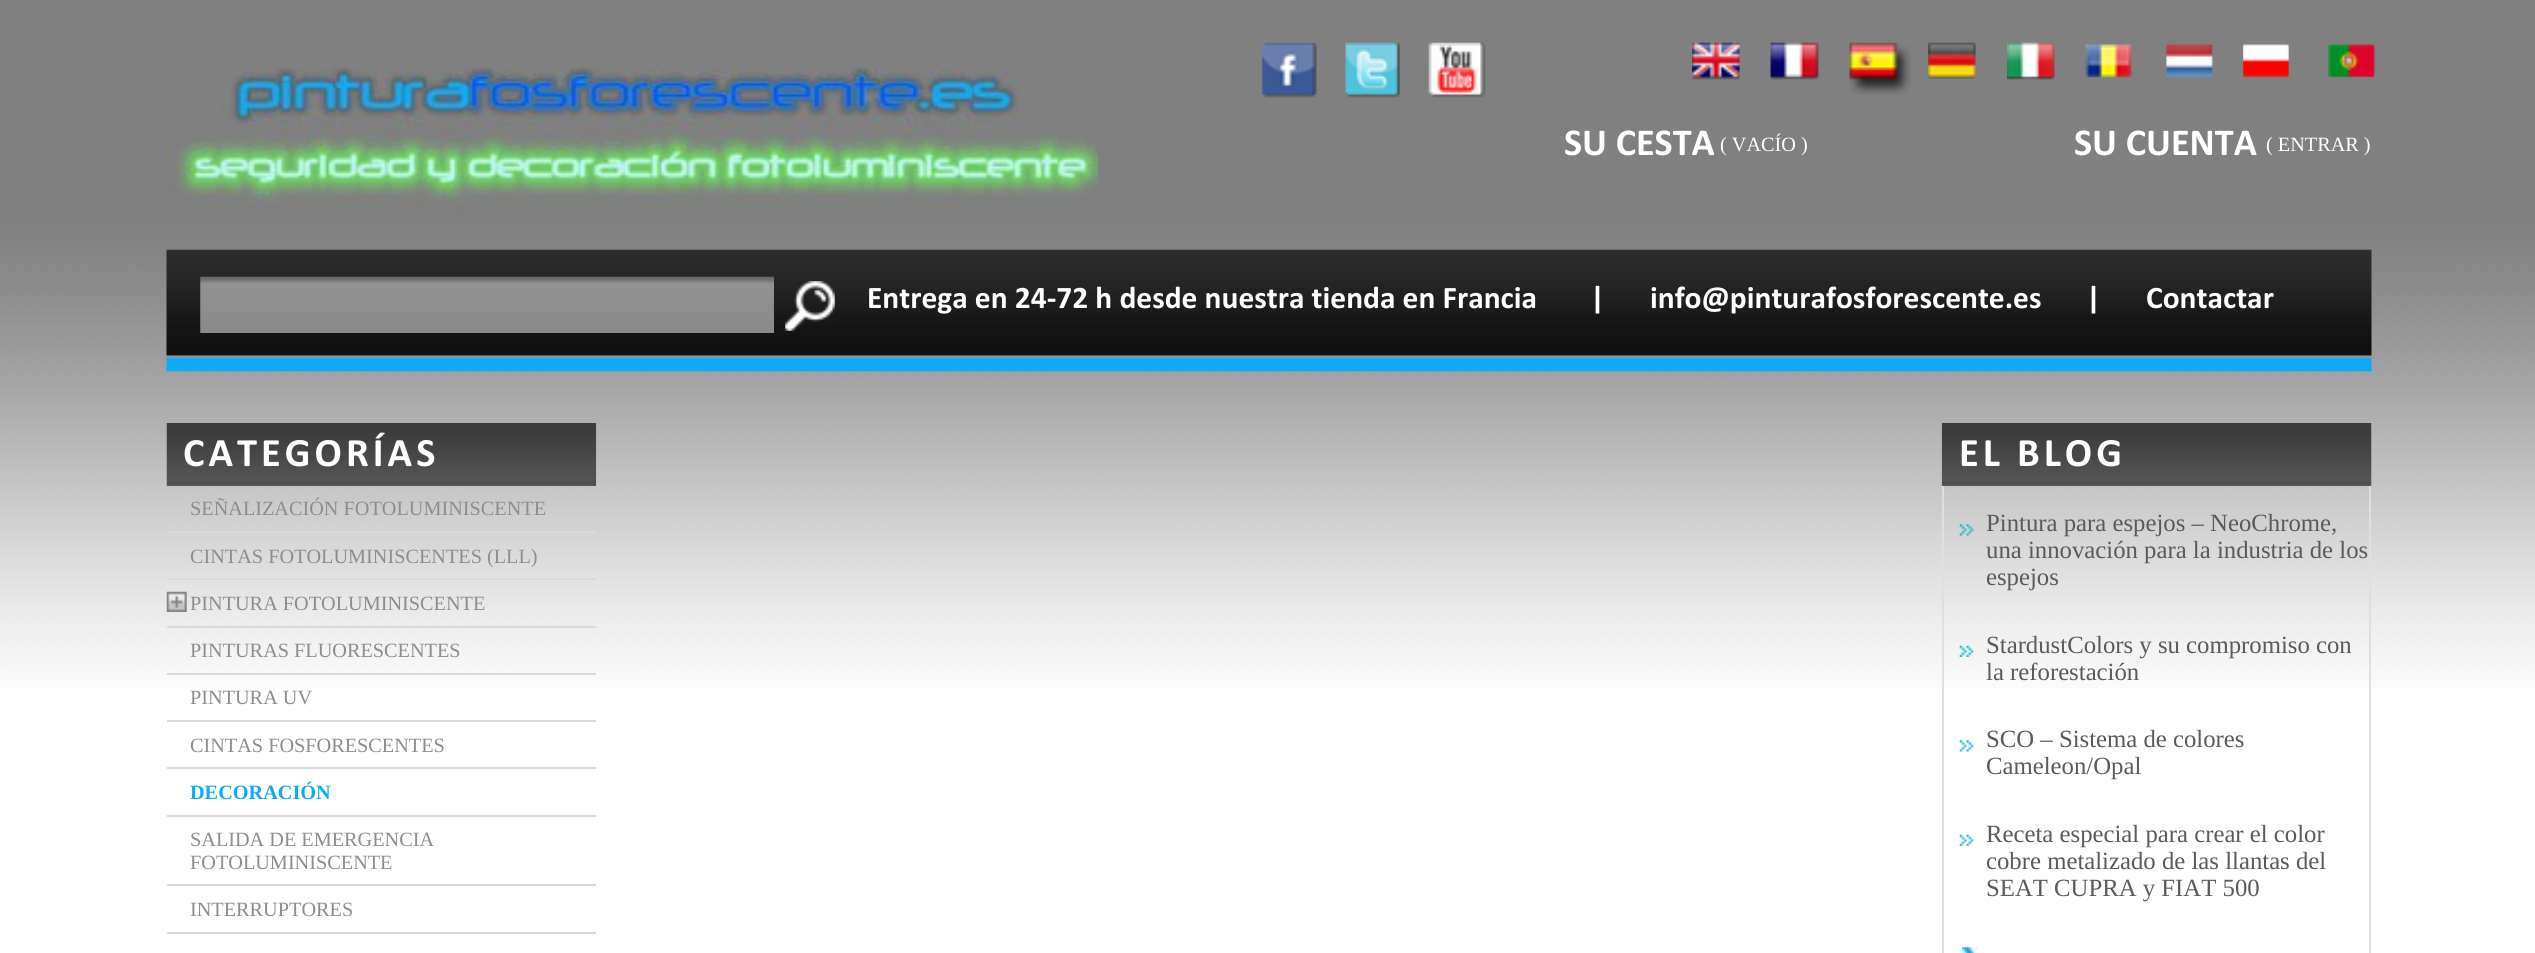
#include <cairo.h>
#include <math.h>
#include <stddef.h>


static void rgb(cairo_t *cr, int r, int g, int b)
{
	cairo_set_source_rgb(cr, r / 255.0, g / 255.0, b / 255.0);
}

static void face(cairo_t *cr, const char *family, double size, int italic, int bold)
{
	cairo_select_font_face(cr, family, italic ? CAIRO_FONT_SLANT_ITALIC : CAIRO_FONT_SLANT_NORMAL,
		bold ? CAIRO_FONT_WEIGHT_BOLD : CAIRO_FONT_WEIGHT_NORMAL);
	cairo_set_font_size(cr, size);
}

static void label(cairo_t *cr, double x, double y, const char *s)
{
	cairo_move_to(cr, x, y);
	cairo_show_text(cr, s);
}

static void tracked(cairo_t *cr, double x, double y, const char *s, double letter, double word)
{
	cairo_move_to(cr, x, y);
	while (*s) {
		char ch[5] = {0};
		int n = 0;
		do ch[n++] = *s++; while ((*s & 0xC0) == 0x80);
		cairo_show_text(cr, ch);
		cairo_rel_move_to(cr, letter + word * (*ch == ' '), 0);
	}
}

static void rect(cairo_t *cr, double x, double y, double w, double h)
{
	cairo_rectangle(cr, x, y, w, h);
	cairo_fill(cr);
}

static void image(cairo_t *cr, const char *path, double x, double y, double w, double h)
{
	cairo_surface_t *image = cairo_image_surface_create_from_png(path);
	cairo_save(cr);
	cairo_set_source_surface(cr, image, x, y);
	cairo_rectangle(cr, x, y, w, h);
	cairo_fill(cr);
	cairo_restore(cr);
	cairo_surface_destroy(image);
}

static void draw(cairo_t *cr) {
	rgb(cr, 255, 255, 255);
	cairo_paint(cr);
	image(cr, "image0.png", 0, 0, 2535, 688);
	image(cr, "image1.png", 166, 67, 932, 147);
	image(cr, "image2.png", 1262, 42, 55, 56);
	image(cr, "image3.png", 1345, 42, 55, 56);
	image(cr, "image4.png", 1428, 42, 58, 56);
	image(cr, "image5.png", 1692, 42, 48, 38);
	image(cr, "image6.png", 1692, 42, 48, 38);
	image(cr, "image7.png", 1770, 42, 49, 38);
	image(cr, "image8.png", 1770, 42, 49, 38);
	image(cr, "image9.png", 1849, 42, 62, 53);
	image(cr, "image10.png", 1928, 42, 48, 37);
	image(cr, "image11.png", 1928, 42, 48, 37);
	image(cr, "image12.png", 2007, 42, 48, 38);
	image(cr, "image13.png", 2007, 42, 48, 38);
	image(cr, "image14.png", 2085, 44, 47, 34);
	image(cr, "image15.png", 2085, 44, 47, 34);
	image(cr, "image16.png", 2166, 44, 47, 34);
	image(cr, "image17.png", 2166, 44, 47, 34);
	image(cr, "image18.png", 2243, 44, 46, 34);
	image(cr, "image19.png", 2243, 44, 46, 34);
	image(cr, "image20.png", 2328, 44, 47, 34);
	image(cr, "image21.png", 2328, 44, 47, 34);
	face(cr, "Calibri", 38.25, 0, 1);
	rgb(cr, 255, 255, 255);
	label(cr, 1564, 155, "SU CESTA");
	face(cr, "Liberation Serif", 20.25, 0, 0);
	label(cr, 1720, 151, "( VACÍO )");
	face(cr, "Calibri", 38.25, 0, 1);
	label(cr, 2074, 155, "SU CUENTA");
	face(cr, "Liberation Serif", 20.25, 0, 0);
	label(cr, 2266, 151, "( ENTRAR )");
	image(cr, "image22.png", 166, 249, 2206, 123);
	image(cr, "image23.png", 200, 276, 574, 57);
	image(cr, "image24.png", 785, 281, 50, 50);
	face(cr, "Calibri", 31.5, 0, 1);
	label(cr, 867, 308, "Entrega en 24-72 h desde nuestra tienda en Francia");
	label(cr, 1590, 308, "|");
	label(cr, 1650, 308, "info@pinturafosforescente.es");
	label(cr, 2086, 308, "|");
	label(cr, 2146, 308, "Contactar");
	image(cr, "image25.png", 166, 423, 431, 63);
	face(cr, "Calibri", 40.5, 0, 1);
	tracked(cr, 183, 466, "CATEGORÍAS", 4, 0);
	rgb(cr, 218, 218, 218);
	rect(cr, 167, 531, 429, 2);
	face(cr, "Liberation Serif", 20.25, 0, 0);
	rgb(cr, 141, 141, 141);
	label(cr, 190, 515, "SEÑALIZACIÓN FOTOLUMINISCENTE");
	rgb(cr, 218, 218, 218);
	rect(cr, 167, 578, 429, 2);
	rgb(cr, 141, 141, 141);
	label(cr, 190, 563, "CINTAS FOTOLUMINISCENTES (LLL)");
	rgb(cr, 218, 218, 218);
	rect(cr, 167, 626, 429, 2);
	image(cr, "image26.png", 166, 591, 21, 21);
	rgb(cr, 141, 141, 141);
	label(cr, 190, 610, "PINTURA FOTOLUMINISCENTE");
	rgb(cr, 218, 218, 218);
	rect(cr, 167, 673, 429, 2);
	rgb(cr, 141, 141, 141);
	label(cr, 190, 657, "PINTURAS FLUORESCENTES");
	rgb(cr, 218, 218, 218);
	rect(cr, 167, 720, 429, 2);
	rgb(cr, 141, 141, 141);
	label(cr, 190, 704, "PINTURA UV");
	rgb(cr, 218, 218, 218);
	rect(cr, 167, 767, 429, 2);
	rgb(cr, 141, 141, 141);
	label(cr, 190, 752, "CINTAS FOSFORESCENTES");
	rgb(cr, 218, 218, 218);
	rect(cr, 167, 815, 429, 2);
	face(cr, "Liberation Serif", 20.25, 0, 1);
	rgb(cr, 13, 171, 245);
	label(cr, 190, 799, "DECORACIÓN");
	rgb(cr, 218, 218, 218);
	rect(cr, 167, 884, 429, 2);
	face(cr, "Liberation Serif", 20.25, 0, 0);
	rgb(cr, 141, 141, 141);
	label(cr, 190, 846, "SALIDA DE EMERGENCIA");
	label(cr, 190, 869, "FOTOLUMINISCENTE");
	rgb(cr, 218, 218, 218);
	rect(cr, 167, 932, 429, 2);
	rgb(cr, 141, 141, 141);
	label(cr, 190, 916, "INTERRUPTORES");
	image(cr, "image27.png", 1941, 423, 431, 63);
	face(cr, "Calibri", 40.5, 0, 1);
	rgb(cr, 255, 255, 255);
	tracked(cr, 1959, 466, "EL BLOG", 4, 0);
	rgb(cr, 223, 223, 223);
	rect(cr, 2369, 486, 2, 467);
	rect(cr, 1942, 486, 2, 467);
	image(cr, "image28.png", 1959, 524, 15, 12);
	face(cr, "Liberation Serif", 24.75, 0, 0);
	rgb(cr, 89, 90, 94);
	label(cr, 1986, 531, "Pintura para espejos – NeoChrome,");
	label(cr, 1986, 558, "una innovación para la industria de los");
	label(cr, 1986, 585, "espejos");
	image(cr, "image29.png", 1959, 645, 15, 12);
	label(cr, 1986, 653, "StardustColors y su compromiso con");
	label(cr, 1986, 680, "la reforestación");
	image(cr, "image30.png", 1959, 740, 15, 12);
	label(cr, 1986, 747, "SCO – Sistema de colores");
	label(cr, 1986, 774, "Cameleon/Opal");
	image(cr, "image31.png", 1959, 834, 15, 12);
	label(cr, 1986, 842, "Receta especial para crear el color");
	label(cr, 1986, 869, "cobre metalizado de las llantas del");
	label(cr, 1986, 896, "SEAT CUPRA y FIAT 500");
	image(cr, "image32.png", 1962, 947, 16, 6);
}

int main(void) {
	cairo_surface_t *surface = cairo_image_surface_create(CAIRO_FORMAT_RGB24, 2535, 953);
	cairo_t *cr = cairo_create(surface);
	cairo_font_options_t *options = cairo_font_options_create();
	cairo_font_options_set_hint_metrics(options, CAIRO_HINT_METRICS_OFF);
	cairo_font_options_set_hint_style(options, CAIRO_HINT_STYLE_NONE);
	cairo_set_font_options(cr, options);
	cairo_set_miter_limit(cr, 4);
	draw(cr);
	cairo_surface_write_to_png(surface, "render.png");
	cairo_font_options_destroy(options);
	cairo_destroy(cr);
	cairo_surface_destroy(surface);
	return 0;
}
